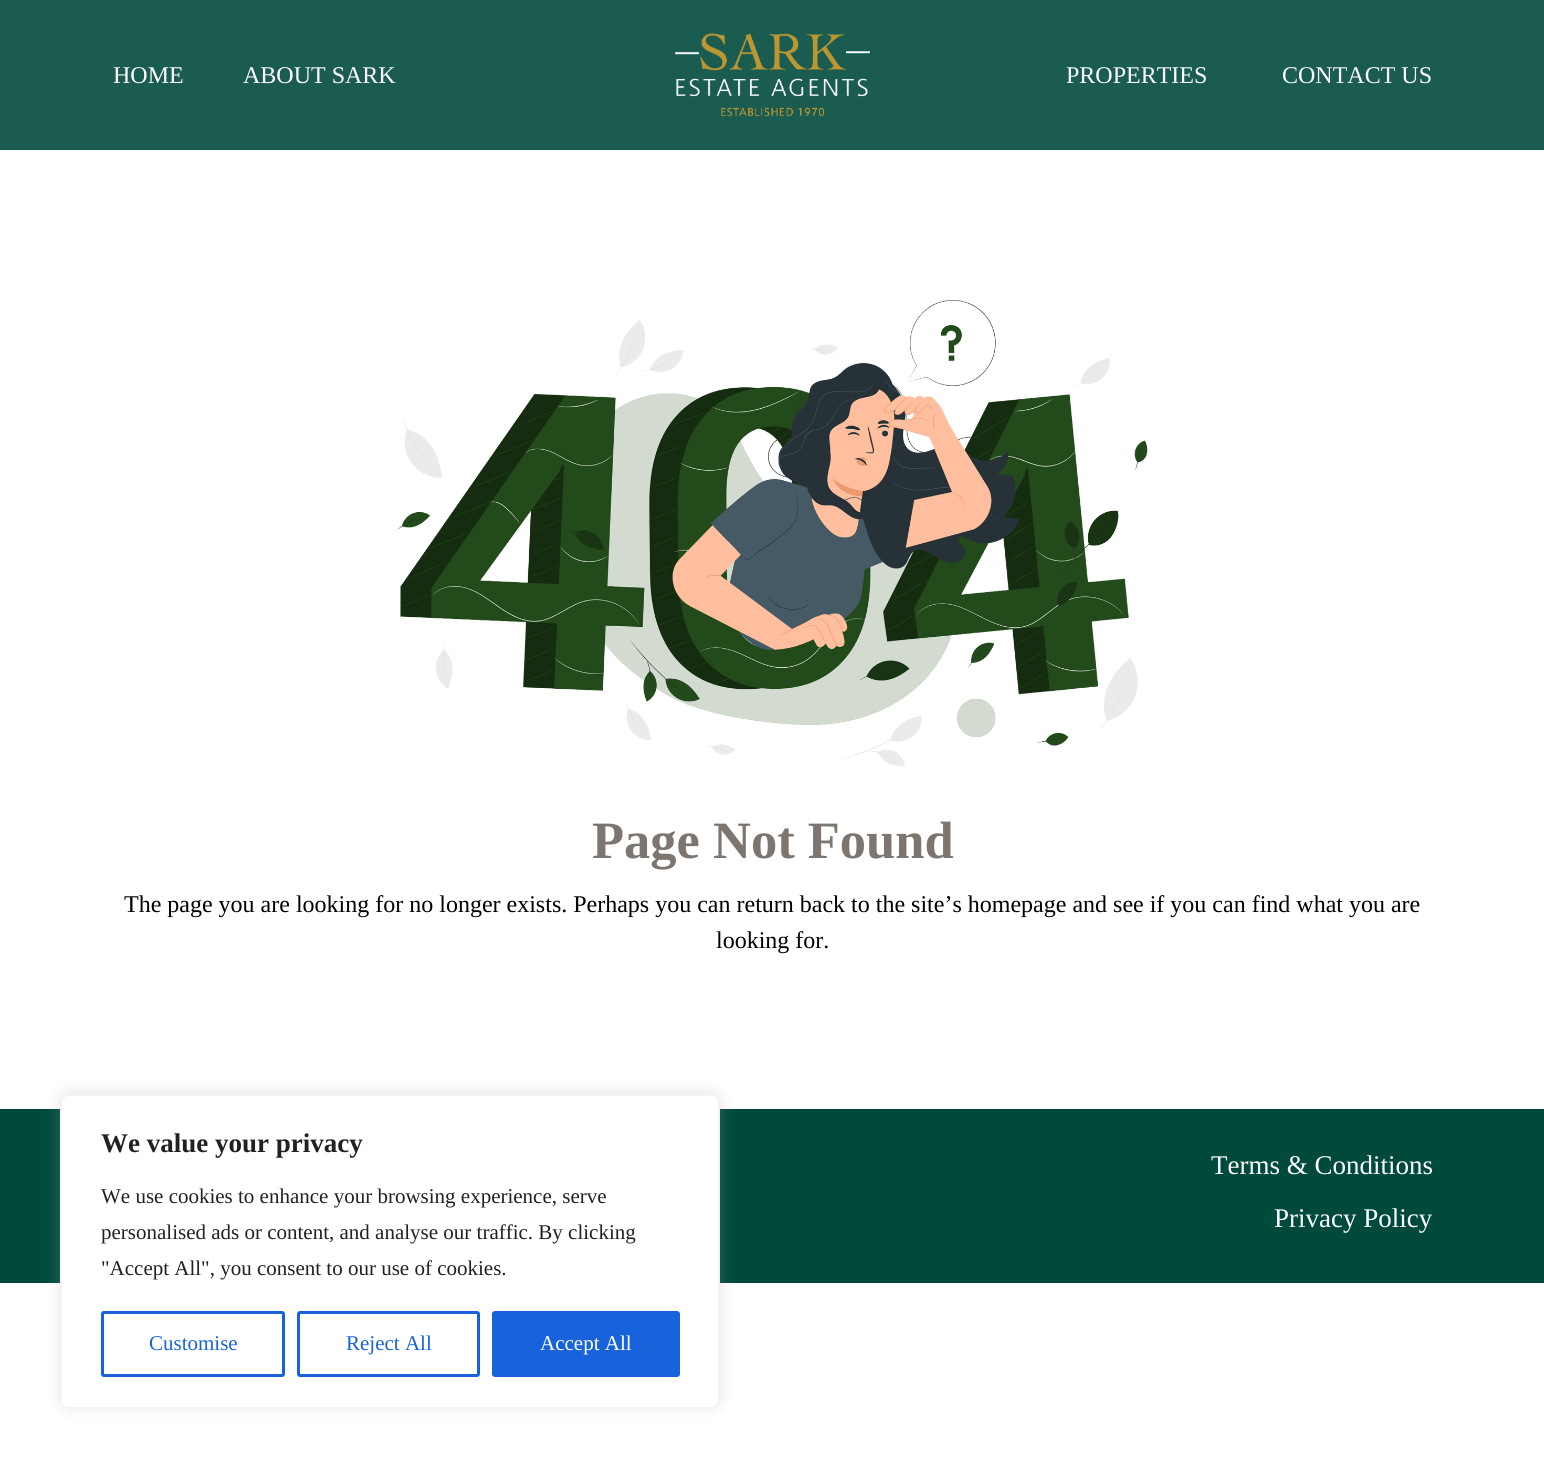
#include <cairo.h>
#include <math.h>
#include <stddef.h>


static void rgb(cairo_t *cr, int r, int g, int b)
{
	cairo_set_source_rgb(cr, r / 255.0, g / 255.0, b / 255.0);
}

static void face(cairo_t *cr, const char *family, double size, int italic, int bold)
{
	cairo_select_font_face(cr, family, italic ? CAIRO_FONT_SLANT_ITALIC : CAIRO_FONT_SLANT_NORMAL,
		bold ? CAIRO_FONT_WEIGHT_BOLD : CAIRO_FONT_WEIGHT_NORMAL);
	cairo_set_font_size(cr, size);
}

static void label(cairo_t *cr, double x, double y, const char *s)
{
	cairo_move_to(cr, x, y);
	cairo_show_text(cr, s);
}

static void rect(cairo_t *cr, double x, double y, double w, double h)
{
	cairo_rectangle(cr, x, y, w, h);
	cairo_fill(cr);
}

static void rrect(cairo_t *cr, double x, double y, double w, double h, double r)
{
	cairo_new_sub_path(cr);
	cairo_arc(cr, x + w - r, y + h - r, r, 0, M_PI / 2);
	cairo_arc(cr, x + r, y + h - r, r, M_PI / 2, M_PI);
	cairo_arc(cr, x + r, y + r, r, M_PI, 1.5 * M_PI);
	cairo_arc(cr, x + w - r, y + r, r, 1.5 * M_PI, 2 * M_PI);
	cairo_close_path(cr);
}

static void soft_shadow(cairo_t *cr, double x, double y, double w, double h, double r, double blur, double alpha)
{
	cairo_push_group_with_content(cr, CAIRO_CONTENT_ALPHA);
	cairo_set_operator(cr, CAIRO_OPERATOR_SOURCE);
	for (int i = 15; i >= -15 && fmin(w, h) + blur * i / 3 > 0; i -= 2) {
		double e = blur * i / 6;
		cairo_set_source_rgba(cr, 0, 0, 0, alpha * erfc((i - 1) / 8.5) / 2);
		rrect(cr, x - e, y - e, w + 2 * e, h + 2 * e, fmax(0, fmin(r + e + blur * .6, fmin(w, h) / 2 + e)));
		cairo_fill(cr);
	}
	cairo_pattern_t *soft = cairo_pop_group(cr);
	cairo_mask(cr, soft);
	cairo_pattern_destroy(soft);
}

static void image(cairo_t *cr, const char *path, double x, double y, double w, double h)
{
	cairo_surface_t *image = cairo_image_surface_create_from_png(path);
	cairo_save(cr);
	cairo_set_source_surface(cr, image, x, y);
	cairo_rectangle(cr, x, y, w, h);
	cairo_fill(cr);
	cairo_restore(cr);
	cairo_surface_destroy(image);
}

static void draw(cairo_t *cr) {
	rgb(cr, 255, 255, 255);
	cairo_paint(cr);
	rgb(cr, 26, 92, 79);
	rect(cr, 0, 0, 1544, 150);
	face(cr, "Liberation Serif", 24, 0, 0);
	rgb(cr, 255, 255, 255);
	label(cr, 113, 83, "HOME");
	label(cr, 243, 83, "ABOUT SARK");
	image(cr, "image0.png", 675, 33, 195, 84);
	label(cr, 1066, 83, "PROPERTIES");
	label(cr, 1282, 83, "CONTACT US");
	image(cr, "image1.png", 397, 300, 751, 466);
	face(cr, "Liberation Serif", 52.5, 0, 1);
	rgb(cr, 125, 117, 112);
	label(cr, 592, 858, "Page Not Found");
	face(cr, "Liberation Serif", 24, 0, 0);
	rgb(cr, 0, 0, 0);
	label(cr, 124, 912, "The page you are looking for no longer exists. Perhaps you can return back to the site’s homepage and see if you can find what you are");
	label(cr, 716, 948, "looking for.");
	rgb(cr, 0, 74, 59);
	rect(cr, 0, 1109, 1544, 174);
	face(cr, "Liberation Serif", 27, 0, 0);
	rgb(cr, 255, 255, 255);
	label(cr, 1211, 1174, "Terms & Conditions");
	label(cr, 1274, 1227, "Privacy Policy");
	rgb(cr, 172, 171, 171);
	soft_shadow(cr, 60, 1092, 660, 315, 9, 7.5, 0.3);
	rgb(cr, 255, 255, 255);
	rrect(cr, 61, 1095, 658, 313, 8);
	cairo_fill_preserve(cr);
	rgb(cr, 244, 244, 244);
	cairo_stroke(cr);
	face(cr, "Liberation Serif", 27, 0, 1);
	rgb(cr, 33, 33, 33);
	label(cr, 101, 1152, "We value your privacy");
	face(cr, "Liberation Serif", 21, 0, 0);
	label(cr, 101, 1203, "We use cookies to enhance your browsing experience, serve");
	label(cr, 101, 1239, "personalised ads or content, and analyse our traffic. By clicking");
	label(cr, 101, 1275, "\"Accept All\", you consent to our use of cookies.");
	rrect(cr, 102.5, 1312.5, 181, 63, 1.5);
	rgb(cr, 24, 99, 220);
	cairo_set_line_width(cr, 3);
	cairo_stroke(cr);
	label(cr, 149, 1350, "Customise");
	rrect(cr, 298.5, 1312.5, 180, 63, 1.5);
	cairo_stroke(cr);
	label(cr, 346, 1350, "Reject All");
	rrect(cr, 493.5, 1312.5, 185, 63, 1.5);
	cairo_fill_preserve(cr);
	cairo_stroke(cr);
	rgb(cr, 255, 255, 255);
	label(cr, 540, 1350, "Accept All");
}

int main(void) {
	cairo_surface_t *surface = cairo_image_surface_create(CAIRO_FORMAT_RGB24, 1544, 1468);
	cairo_t *cr = cairo_create(surface);
	cairo_font_options_t *options = cairo_font_options_create();
	cairo_font_options_set_hint_metrics(options, CAIRO_HINT_METRICS_OFF);
	cairo_font_options_set_hint_style(options, CAIRO_HINT_STYLE_NONE);
	cairo_set_font_options(cr, options);
	cairo_set_miter_limit(cr, 4);
	draw(cr);
	cairo_surface_write_to_png(surface, "render.png");
	cairo_font_options_destroy(options);
	cairo_destroy(cr);
	cairo_surface_destroy(surface);
	return 0;
}
